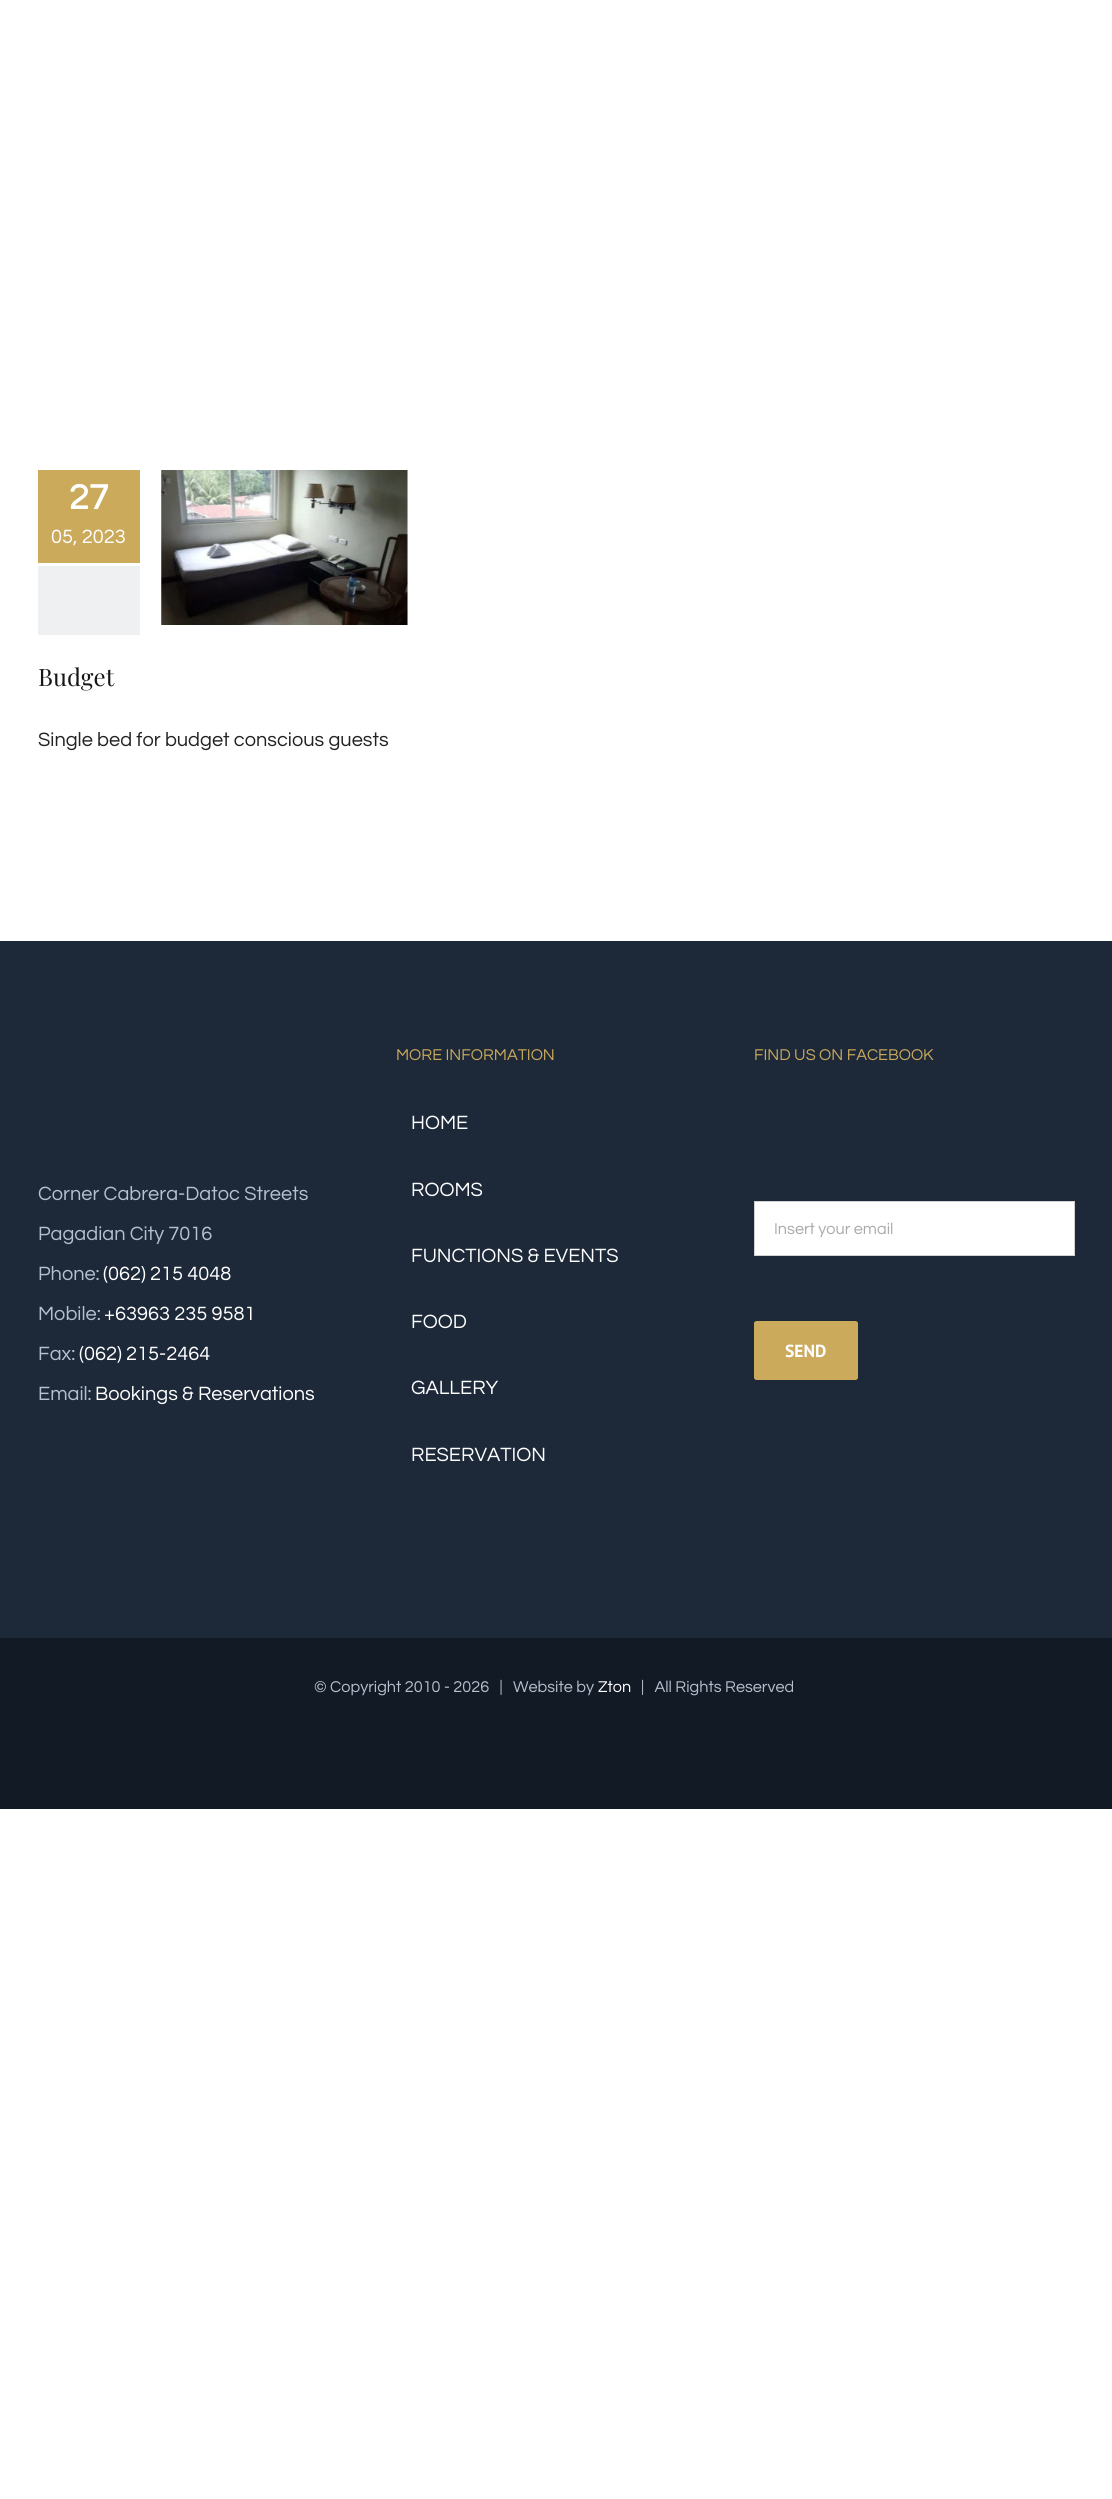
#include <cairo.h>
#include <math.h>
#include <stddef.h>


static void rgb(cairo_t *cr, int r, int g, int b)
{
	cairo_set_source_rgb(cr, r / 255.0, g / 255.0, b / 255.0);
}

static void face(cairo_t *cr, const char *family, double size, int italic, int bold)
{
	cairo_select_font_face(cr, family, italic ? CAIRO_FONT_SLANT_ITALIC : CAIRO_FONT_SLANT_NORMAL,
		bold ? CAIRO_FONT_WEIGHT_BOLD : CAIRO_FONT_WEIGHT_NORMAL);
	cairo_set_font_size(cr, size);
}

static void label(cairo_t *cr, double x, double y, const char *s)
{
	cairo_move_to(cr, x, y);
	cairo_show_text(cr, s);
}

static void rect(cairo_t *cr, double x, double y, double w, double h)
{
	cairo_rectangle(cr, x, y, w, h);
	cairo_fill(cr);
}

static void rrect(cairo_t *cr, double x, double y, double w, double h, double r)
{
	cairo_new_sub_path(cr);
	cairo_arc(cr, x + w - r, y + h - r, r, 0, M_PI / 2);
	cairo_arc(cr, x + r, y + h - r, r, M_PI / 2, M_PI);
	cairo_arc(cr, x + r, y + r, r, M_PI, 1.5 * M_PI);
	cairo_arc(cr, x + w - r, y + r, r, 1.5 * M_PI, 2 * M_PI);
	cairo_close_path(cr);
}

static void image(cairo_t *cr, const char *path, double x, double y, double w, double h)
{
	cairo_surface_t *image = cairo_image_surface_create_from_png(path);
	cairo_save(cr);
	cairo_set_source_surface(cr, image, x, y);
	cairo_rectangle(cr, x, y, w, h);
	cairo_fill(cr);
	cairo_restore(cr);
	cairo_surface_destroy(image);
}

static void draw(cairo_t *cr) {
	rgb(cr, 255, 255, 255);
	cairo_paint(cr);
	rgb(cr, 203, 170, 92);
	rect(cr, 38, 470, 102, 93);
	face(cr, "Questrial", 36, 0, 1);
	rgb(cr, 255, 255, 255);
	label(cr, 69, 509, "27");
	face(cr, "Questrial", 20, 0, 0);
	label(cr, 51, 543, "05, 2023");
	rgb(cr, 238, 240, 242);
	rect(cr, 38, 566, 102, 69);
	image(cr, "image0.png", 161, 470, 247, 155);
	face(cr, "Playfair Display", 24, 0, 0);
	rgb(cr, 23, 23, 23);
	label(cr, 38, 686, "Budget");
	face(cr, "Questrial", 20, 0, 0);
	rgb(cr, 34, 34, 34);
	label(cr, 38, 746, "Single bed for budget conscious guests");
	rgb(cr, 29, 41, 57);
	rect(cr, 0, 941, 1112, 697);
	rgb(cr, 182, 192, 206);
	label(cr, 38, 1200, "Corner Cabrera-Datoc Streets");
	label(cr, 38, 1240, "Pagadian City 7016");
	label(cr, 38, 1280, "Phone:");
	rgb(cr, 255, 255, 255);
	label(cr, 103, 1280, "(062) 215 4048");
	rgb(cr, 182, 192, 206);
	label(cr, 38, 1320, "Mobile:");
	rgb(cr, 255, 255, 255);
	label(cr, 104, 1320, "+63963 235 9581");
	rgb(cr, 182, 192, 206);
	label(cr, 38, 1360, "Fax:");
	rgb(cr, 255, 255, 255);
	label(cr, 79, 1360, "(062) 215-2464");
	rgb(cr, 182, 192, 206);
	label(cr, 38, 1400, "Email:");
	rgb(cr, 255, 255, 255);
	label(cr, 95, 1400, "Bookings & Reservations");
	face(cr, "Questrial", 16.25, 0, 0);
	rgb(cr, 203, 170, 92);
	label(cr, 396, 1060, "MORE INFORMATION");
	face(cr, "Questrial", 20, 0, 0);
	rgb(cr, 255, 255, 255);
	label(cr, 411, 1129, "HOME");
	label(cr, 411, 1196, "ROOMS");
	label(cr, 411, 1262, "FUNCTIONS & EVENTS");
	label(cr, 411, 1328, "FOOD");
	label(cr, 411, 1394, "GALLERY");
	label(cr, 411, 1461, "RESERVATION");
	face(cr, "Questrial", 16.25, 0, 0);
	rgb(cr, 203, 170, 92);
	label(cr, 754, 1060, "FIND US ON FACEBOOK");
	rgb(cr, 255, 255, 255);
	cairo_rectangle(cr, 754.5, 1201.5, 320, 54);
	cairo_fill_preserve(cr);
	rgb(cr, 210, 210, 210);
	cairo_set_line_width(cr, 1);
	cairo_stroke(cr);
	rgb(cr, 170, 169, 169);
	label(cr, 774, 1234, "Insert your email");
	rgb(cr, 203, 170, 92);
	rrect(cr, 754, 1321, 104, 59, 2.5);
	cairo_fill(cr);
	face(cr, "PT Sans", 17.5, 0, 1);
	rgb(cr, 255, 255, 255);
	label(cr, 785, 1357, "SEND");
	rgb(cr, 18, 26, 38);
	rect(cr, 0, 1638, 1112, 171);
	face(cr, "Questrial", 16.25, 0, 0);
	rgb(cr, 182, 192, 206);
	label(cr, 314, 1692, "© Copyright 2010 - 2026   |   Website by");
	rgb(cr, 255, 255, 255);
	label(cr, 598, 1692, "Zton");
	rgb(cr, 182, 192, 206);
	label(cr, 641, 1692, "|   All Rights Reserved");
}

int main(void) {
	cairo_surface_t *surface = cairo_image_surface_create(CAIRO_FORMAT_RGB24, 1112, 2499);
	cairo_t *cr = cairo_create(surface);
	cairo_font_options_t *options = cairo_font_options_create();
	cairo_font_options_set_hint_metrics(options, CAIRO_HINT_METRICS_OFF);
	cairo_font_options_set_hint_style(options, CAIRO_HINT_STYLE_NONE);
	cairo_set_font_options(cr, options);
	cairo_set_miter_limit(cr, 4);
	draw(cr);
	cairo_surface_write_to_png(surface, "render.png");
	cairo_font_options_destroy(options);
	cairo_destroy(cr);
	cairo_surface_destroy(surface);
	return 0;
}
